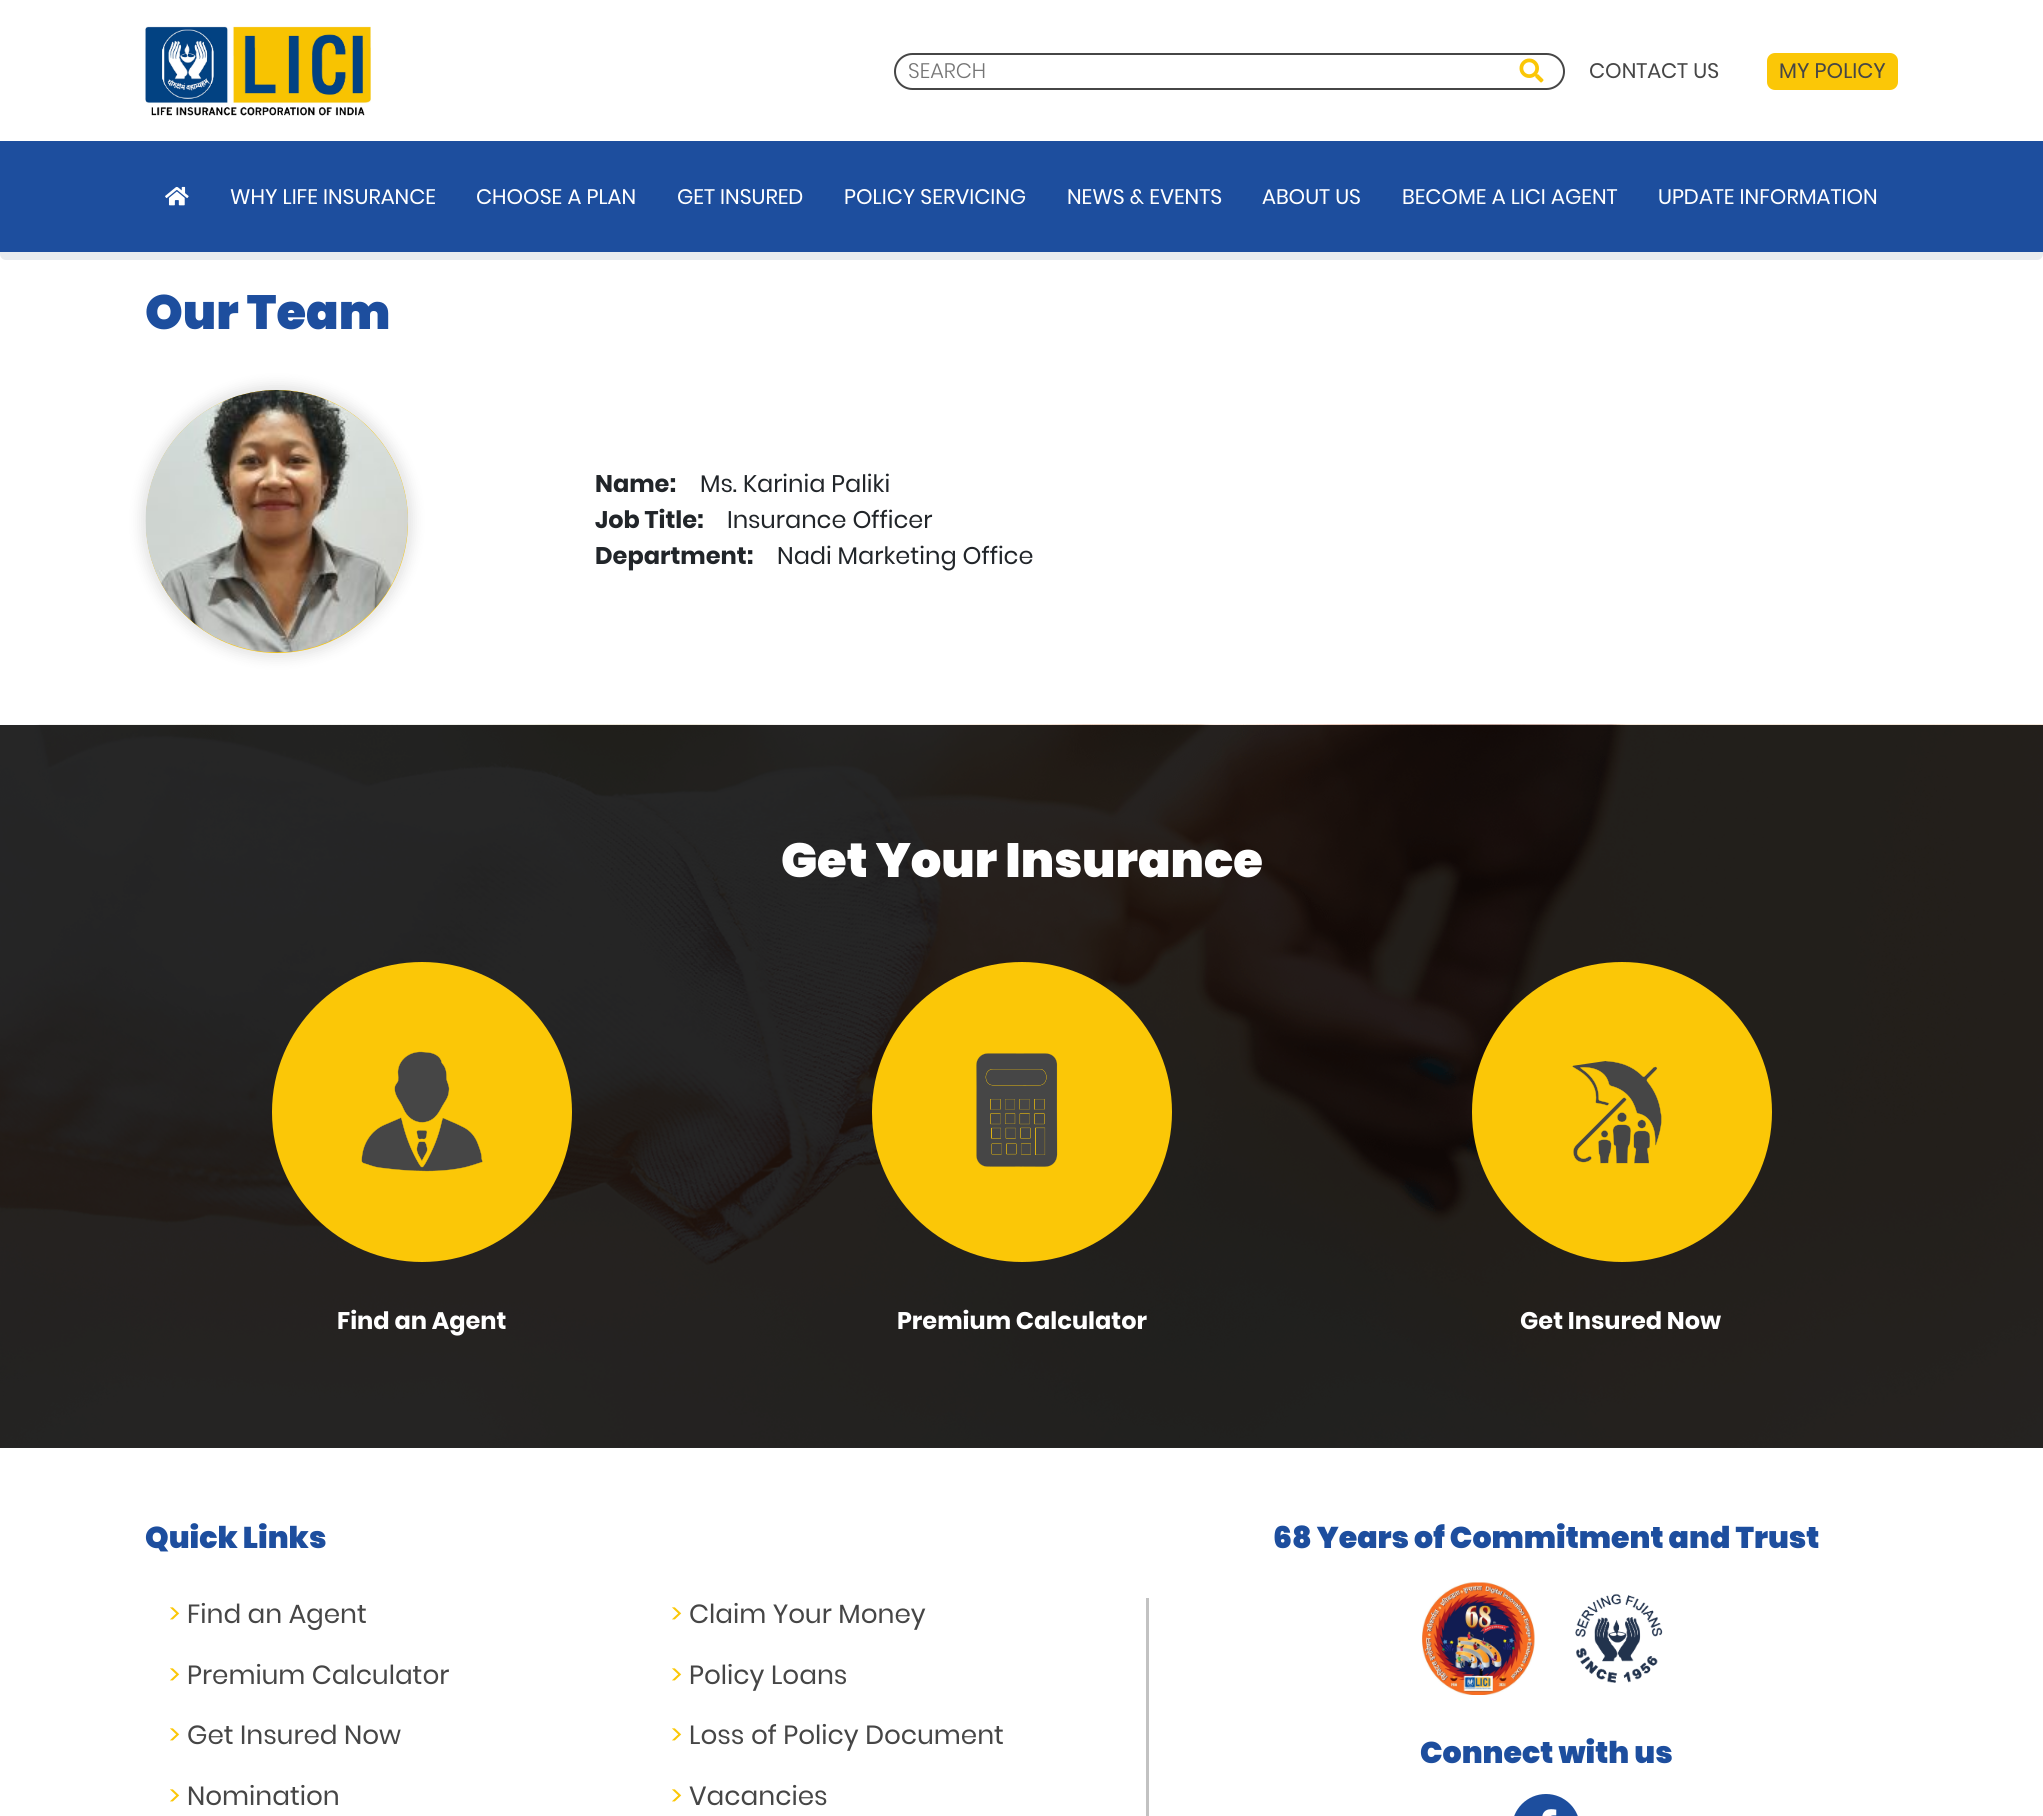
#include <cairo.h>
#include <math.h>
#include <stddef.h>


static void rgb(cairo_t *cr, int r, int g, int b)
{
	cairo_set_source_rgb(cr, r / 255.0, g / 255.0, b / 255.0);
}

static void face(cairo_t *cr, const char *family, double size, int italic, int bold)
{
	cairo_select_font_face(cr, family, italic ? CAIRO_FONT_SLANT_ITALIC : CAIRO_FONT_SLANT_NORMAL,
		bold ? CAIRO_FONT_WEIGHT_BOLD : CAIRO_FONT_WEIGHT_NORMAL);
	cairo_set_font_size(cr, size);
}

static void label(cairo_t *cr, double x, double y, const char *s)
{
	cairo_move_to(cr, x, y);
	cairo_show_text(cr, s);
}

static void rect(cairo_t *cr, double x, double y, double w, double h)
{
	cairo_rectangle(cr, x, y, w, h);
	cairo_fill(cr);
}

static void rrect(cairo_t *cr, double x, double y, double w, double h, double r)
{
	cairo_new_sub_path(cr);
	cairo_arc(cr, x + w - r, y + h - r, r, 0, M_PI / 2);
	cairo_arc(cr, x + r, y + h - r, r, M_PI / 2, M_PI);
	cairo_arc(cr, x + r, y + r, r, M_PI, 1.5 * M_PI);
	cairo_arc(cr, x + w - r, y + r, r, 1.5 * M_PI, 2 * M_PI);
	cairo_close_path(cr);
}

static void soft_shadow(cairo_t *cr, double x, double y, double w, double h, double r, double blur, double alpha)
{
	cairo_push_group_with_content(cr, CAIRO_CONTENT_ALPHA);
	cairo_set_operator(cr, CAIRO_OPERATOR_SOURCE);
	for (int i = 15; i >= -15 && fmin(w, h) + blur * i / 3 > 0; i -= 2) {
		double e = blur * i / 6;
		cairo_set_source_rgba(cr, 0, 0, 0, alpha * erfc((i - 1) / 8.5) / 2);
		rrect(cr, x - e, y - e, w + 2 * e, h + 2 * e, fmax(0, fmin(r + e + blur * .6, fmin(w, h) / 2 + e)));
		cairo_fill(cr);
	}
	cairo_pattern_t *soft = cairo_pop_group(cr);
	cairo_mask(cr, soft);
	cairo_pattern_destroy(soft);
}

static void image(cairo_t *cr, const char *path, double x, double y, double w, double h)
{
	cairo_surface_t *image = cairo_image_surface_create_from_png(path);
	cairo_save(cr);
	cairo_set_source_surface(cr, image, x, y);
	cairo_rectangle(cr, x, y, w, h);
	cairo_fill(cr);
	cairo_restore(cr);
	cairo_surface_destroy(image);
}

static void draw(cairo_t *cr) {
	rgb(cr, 255, 255, 255);
	cairo_paint(cr);
	rgb(cr, 38, 38, 38);
	rect(cr, 0, 725, 2043, 723);
	rgb(cr, 233, 236, 239);
	rrect(cr, 0, 102, 2043, 158, 6);
	cairo_fill(cr);
	rgb(cr, 255, 255, 255);
	rect(cr, 0, 102, 2043, 39);
	image(cr, "image0.png", 145, 26, 226, 90);
	rrect(cr, 895, 54, 669, 35, 17.5);
	rgb(cr, 70, 70, 70);
	cairo_stroke(cr);
	face(cr, "Poppins Light", 21, 0, 0);
	rgb(cr, 117, 117, 117);
	label(cr, 908, 78, "SEARCH");
	image(cr, "image1.png", 1519, 58, 25, 25);
	face(cr, "Poppins", 21, 0, 0);
	rgb(cr, 70, 70, 70);
	label(cr, 1589, 78, "CONTACT US");
	rgb(cr, 251, 199, 7);
	rrect(cr, 1767, 53, 131, 37, 8);
	cairo_fill(cr);
	rgb(cr, 70, 70, 70);
	label(cr, 1779, 78, "MY POLICY");
	rgb(cr, 29, 78, 158);
	rect(cr, 0, 141, 2043, 111);
	image(cr, "image2.png", 165, 186, 24, 20);
	rgb(cr, 255, 255, 255);
	label(cr, 230, 204, "WHY LIFE INSURANCE");
	label(cr, 476, 204, "CHOOSE A PLAN");
	label(cr, 677, 204, "GET INSURED");
	label(cr, 844, 204, "POLICY SERVICING");
	label(cr, 1067, 204, "NEWS & EVENTS");
	label(cr, 1262, 204, "ABOUT US");
	label(cr, 1402, 204, "BECOME A LICI AGENT");
	label(cr, 1658, 204, "UPDATE INFORMATION");
	face(cr, "Poppins Black", 48, 0, 0);
	rgb(cr, 29, 78, 158);
	label(cr, 145, 329, "Our Team");
	rgb(cr, 0, 0, 0);
	soft_shadow(cr, 140, 384, 274, 275, 137, 6, 0.1);
	rgb(cr, 251, 199, 7);
	rrect(cr, 146, 390, 262, 263, 131);
	cairo_fill(cr);
	image(cr, "image3.png", 145, 390, 263, 263);
	face(cr, "Poppins", 24, 0, 1);
	rgb(cr, 33, 37, 41);
	label(cr, 595, 492, "Name:");
	face(cr, "Poppins", 24, 0, 0);
	label(cr, 700, 492, "Ms. Karinia Paliki");
	face(cr, "Poppins", 24, 0, 1);
	label(cr, 595, 528, "Job Title:");
	face(cr, "Poppins", 24, 0, 0);
	label(cr, 727, 528, "Insurance Officer");
	face(cr, "Poppins", 24, 0, 1);
	label(cr, 595, 564, "Department:");
	face(cr, "Poppins", 24, 0, 0);
	label(cr, 777, 564, "Nadi Marketing Office");
	image(cr, "image4.png", 0, 724, 2043, 724);
	face(cr, "Poppins Black", 48, 0, 0);
	rgb(cr, 255, 255, 255);
	label(cr, 781, 877, "Get Your Insurance");
	rgb(cr, 251, 199, 7);
	cairo_new_path(cr);
	cairo_arc(cr, 422, 1112, 150, 0, 2 * M_PI);
	cairo_fill(cr);
	image(cr, "image5.png", 361, 1051, 122, 121);
	face(cr, "Poppins", 24, 0, 1);
	rgb(cr, 255, 255, 255);
	label(cr, 337, 1329, "Find an Agent");
	rgb(cr, 251, 199, 7);
	cairo_new_path(cr);
	cairo_arc(cr, 1022, 1112, 150, 0, 2 * M_PI);
	cairo_fill(cr);
	image(cr, "image6.png", 976, 1053, 82, 114);
	rgb(cr, 255, 255, 255);
	label(cr, 897, 1329, "Premium Calculator");
	rgb(cr, 251, 199, 7);
	cairo_new_path(cr);
	cairo_arc(cr, 1622, 1112, 150, 0, 2 * M_PI);
	cairo_fill(cr);
	image(cr, "image7.png", 1572, 1061, 90, 103);
	rgb(cr, 255, 255, 255);
	label(cr, 1520, 1329, "Get Insured Now");
	face(cr, "Poppins Black", 30, 0, 0);
	rgb(cr, 29, 78, 158);
	label(cr, 145, 1548, "Quick Links");
	face(cr, "Poppins", 26.25, 0, 0);
	rgb(cr, 251, 199, 7);
	label(cr, 169, 1623, ">");
	rgb(cr, 70, 70, 70);
	label(cr, 187, 1623, "Find an Agent");
	rgb(cr, 251, 199, 7);
	label(cr, 169, 1684, ">");
	rgb(cr, 70, 70, 70);
	label(cr, 187, 1684, "Premium Calculator");
	rgb(cr, 251, 199, 7);
	label(cr, 169, 1744, ">");
	rgb(cr, 70, 70, 70);
	label(cr, 187, 1744, "Get Insured Now");
	rgb(cr, 251, 199, 7);
	label(cr, 169, 1805, ">");
	rgb(cr, 70, 70, 70);
	label(cr, 187, 1805, "Nomination");
	rgb(cr, 194, 194, 194);
	rect(cr, 1146, 1598, 3, 218);
	rgb(cr, 251, 199, 7);
	label(cr, 671, 1623, ">");
	rgb(cr, 70, 70, 70);
	label(cr, 689, 1623, "Claim Your Money");
	rgb(cr, 251, 199, 7);
	label(cr, 671, 1684, ">");
	rgb(cr, 70, 70, 70);
	label(cr, 689, 1684, "Policy Loans");
	rgb(cr, 251, 199, 7);
	label(cr, 671, 1744, ">");
	rgb(cr, 70, 70, 70);
	label(cr, 689, 1744, "Loss of Policy Document");
	rgb(cr, 251, 199, 7);
	label(cr, 671, 1805, ">");
	rgb(cr, 70, 70, 70);
	label(cr, 689, 1805, "Vacancies");
	face(cr, "Poppins Black", 30, 0, 0);
	rgb(cr, 29, 78, 158);
	label(cr, 1273, 1548, "68 Years of Commitment and Trust");
	image(cr, "image8.png", 1422, 1582, 113, 113);
	image(cr, "image9.png", 1575, 1593, 88, 90);
	label(cr, 1420, 1763, "Connect with us");
	rrect(cr, 1512, 1794, 68, 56, 34);
	cairo_fill(cr);
	image(cr, "image10.png", 1542, 1809, 15, 7);
}

int main(void) {
	cairo_surface_t *surface = cairo_image_surface_create(CAIRO_FORMAT_RGB24, 2043, 1816);
	cairo_t *cr = cairo_create(surface);
	cairo_font_options_t *options = cairo_font_options_create();
	cairo_font_options_set_hint_metrics(options, CAIRO_HINT_METRICS_OFF);
	cairo_font_options_set_hint_style(options, CAIRO_HINT_STYLE_NONE);
	cairo_set_font_options(cr, options);
	cairo_set_miter_limit(cr, 4);
	draw(cr);
	cairo_surface_write_to_png(surface, "render.png");
	cairo_font_options_destroy(options);
	cairo_destroy(cr);
	cairo_surface_destroy(surface);
	return 0;
}
